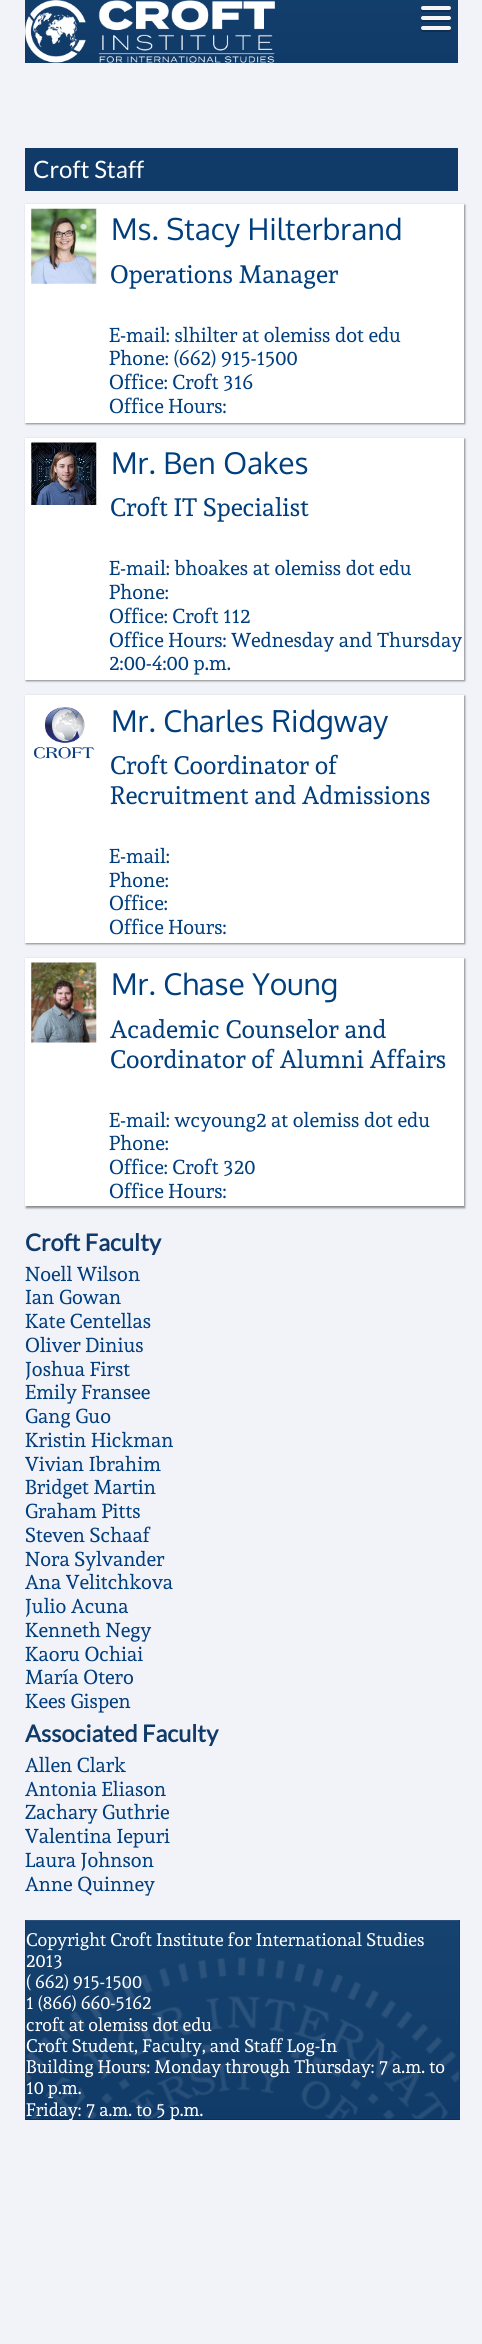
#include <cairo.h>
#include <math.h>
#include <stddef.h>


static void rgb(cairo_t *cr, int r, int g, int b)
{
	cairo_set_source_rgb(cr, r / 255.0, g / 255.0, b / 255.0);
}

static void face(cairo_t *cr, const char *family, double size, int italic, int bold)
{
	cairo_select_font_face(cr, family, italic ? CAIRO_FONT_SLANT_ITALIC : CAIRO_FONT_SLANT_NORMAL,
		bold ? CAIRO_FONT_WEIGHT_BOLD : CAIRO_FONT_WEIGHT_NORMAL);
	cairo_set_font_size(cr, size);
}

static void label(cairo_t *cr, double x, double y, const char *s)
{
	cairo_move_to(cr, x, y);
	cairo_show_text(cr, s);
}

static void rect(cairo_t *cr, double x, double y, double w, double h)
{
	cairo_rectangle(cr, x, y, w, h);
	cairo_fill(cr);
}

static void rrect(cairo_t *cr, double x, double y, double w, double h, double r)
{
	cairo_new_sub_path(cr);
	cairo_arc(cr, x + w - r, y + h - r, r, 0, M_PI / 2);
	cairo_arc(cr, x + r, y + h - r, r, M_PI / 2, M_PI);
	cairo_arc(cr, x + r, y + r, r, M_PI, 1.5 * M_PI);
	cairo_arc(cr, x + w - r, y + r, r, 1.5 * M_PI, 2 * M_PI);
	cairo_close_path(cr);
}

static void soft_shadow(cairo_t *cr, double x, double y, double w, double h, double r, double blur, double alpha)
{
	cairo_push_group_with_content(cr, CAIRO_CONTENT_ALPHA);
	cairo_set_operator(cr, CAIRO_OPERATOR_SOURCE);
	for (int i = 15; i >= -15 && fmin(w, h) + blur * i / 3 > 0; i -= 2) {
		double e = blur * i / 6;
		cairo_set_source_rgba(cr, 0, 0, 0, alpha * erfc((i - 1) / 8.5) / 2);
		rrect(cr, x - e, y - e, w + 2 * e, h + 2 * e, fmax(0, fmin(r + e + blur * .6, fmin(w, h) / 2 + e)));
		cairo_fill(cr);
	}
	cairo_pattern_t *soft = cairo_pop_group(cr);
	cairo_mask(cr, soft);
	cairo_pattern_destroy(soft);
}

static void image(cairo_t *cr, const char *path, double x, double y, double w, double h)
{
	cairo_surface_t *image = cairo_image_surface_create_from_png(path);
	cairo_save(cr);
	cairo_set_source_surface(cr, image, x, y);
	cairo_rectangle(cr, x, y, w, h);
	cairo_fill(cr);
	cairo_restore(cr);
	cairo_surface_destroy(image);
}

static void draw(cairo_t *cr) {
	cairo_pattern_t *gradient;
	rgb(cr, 242, 242, 249);
	cairo_paint(cr);
	gradient = cairo_pattern_create_linear(241, 0, 241, 63);
	cairo_pattern_add_color_stop_rgba(gradient, 0, 0.071, 0.243, 0.424, 1);
	cairo_pattern_add_color_stop_rgba(gradient, 1, 0.063, 0.231, 0.412, 1);
	cairo_set_source(cr, gradient);
	cairo_pattern_destroy(gradient);
	rect(cr, 25, 0, 433, 63);
	image(cr, "image0.png", 25, 0, 250, 63);
	rgb(cr, 14, 47, 81);
	cairo_new_path(cr);
	cairo_move_to(cr, 421.5, 9);
	cairo_line_to(cr, 421, 10.5);
	cairo_curve_to(cr, 421.5, 13, 426, 12, 427.5, 12);
	cairo_line_to(cr, 444.5, 12);
	cairo_curve_to(cr, 445.5, 12, 452.5, 13, 451, 9.5);
	cairo_line_to(cr, 449.5, 10);
	cairo_line_to(cr, 422.5, 10);
	cairo_close_path(cr);
	cairo_fill(cr);
	rgb(cr, 245, 245, 245);
	rrect(cr, 421, 6, 30, 4, 2);
	cairo_fill(cr);
	rgb(cr, 14, 47, 81);
	cairo_new_path(cr);
	cairo_move_to(cr, 421.5, 19);
	cairo_line_to(cr, 421, 20.5);
	cairo_curve_to(cr, 421.5, 23, 426, 22, 427.5, 22);
	cairo_line_to(cr, 444.5, 22);
	cairo_curve_to(cr, 445.5, 22, 452.5, 23, 451, 19.5);
	cairo_line_to(cr, 449.5, 20);
	cairo_line_to(cr, 422.5, 20);
	cairo_close_path(cr);
	cairo_fill(cr);
	rgb(cr, 245, 245, 245);
	rrect(cr, 421, 16, 30, 4, 2);
	cairo_fill(cr);
	rgb(cr, 14, 47, 81);
	cairo_new_path(cr);
	cairo_move_to(cr, 421.5, 29);
	cairo_line_to(cr, 421, 30.5);
	cairo_curve_to(cr, 421.5, 33, 426, 32, 427.5, 32);
	cairo_line_to(cr, 444.5, 32);
	cairo_curve_to(cr, 445.5, 32, 452.5, 33, 451, 29.5);
	cairo_line_to(cr, 449.5, 30);
	cairo_line_to(cr, 422.5, 30);
	cairo_close_path(cr);
	cairo_fill(cr);
	rgb(cr, 245, 245, 245);
	rrect(cr, 421, 26, 30, 4, 2);
	cairo_fill(cr);
	rgb(cr, 16, 59, 105);
	rect(cr, 25, 148, 433, 43);
	face(cr, "Lato", 24, 0, 0);
	rgb(cr, 255, 255, 255);
	label(cr, 33, 178, "Croft Staff");
	rgb(cr, 136, 136, 136);
	soft_shadow(cr, 26, 205, 439, 219, 0, 1, 1);
	rgb(cr, 255, 255, 255);
	rect(cr, 25, 204, 439, 219);
	image(cr, "image1.png", 31, 208, 66, 76);
	face(cr, "Oxygen", 30, 0, 0);
	rgb(cr, 0, 62, 126);
	label(cr, 111, 240, "Ms. Stacy Hilterbrand");
	face(cr, "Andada", 25, 0, 0);
	label(cr, 110, 283, "Operations Manager");
	face(cr, "Andada", 20, 0, 0);
	label(cr, 109, 342, "E-mail: slhilter at olemiss dot edu");
	label(cr, 109, 365, "Phone: (662) 915-1500");
	label(cr, 109, 389, "Office: Croft 316");
	label(cr, 109, 413, "Office Hours:");
	rgb(cr, 136, 136, 136);
	soft_shadow(cr, 26, 439, 439, 242, 0, 1, 1);
	rgb(cr, 255, 255, 255);
	rect(cr, 25, 438, 439, 242);
	image(cr, "image2.png", 31, 442, 66, 63);
	face(cr, "Oxygen", 30, 0, 0);
	rgb(cr, 0, 62, 126);
	label(cr, 111, 474, "Mr. Ben Oakes");
	face(cr, "Andada", 25, 0, 0);
	label(cr, 110, 516, "Croft IT Specialist");
	face(cr, "Andada", 20, 0, 0);
	label(cr, 109, 575, "E-mail: bhoakes at olemiss dot edu");
	label(cr, 109, 599, "Phone:");
	label(cr, 109, 623, "Office: Croft 112");
	label(cr, 109, 647, "Office Hours: Wednesday and Thursday");
	label(cr, 109, 670, "2:00-4:00 p.m.");
	rgb(cr, 136, 136, 136);
	soft_shadow(cr, 26, 696, 439, 248, 0, 1, 1);
	rgb(cr, 255, 255, 255);
	rect(cr, 25, 695, 439, 248);
	image(cr, "image3.png", 34, 707, 61, 52);
	face(cr, "Oxygen", 30, 0, 0);
	rgb(cr, 0, 62, 126);
	label(cr, 111, 732, "Mr. Charles Ridgway");
	face(cr, "Andada", 25, 0, 0);
	label(cr, 110, 774, "Croft Coordinator of");
	label(cr, 110, 804, "Recruitment and Admissions");
	face(cr, "Andada", 20, 0, 0);
	label(cr, 109, 863, "E-mail:");
	label(cr, 109, 887, "Phone:");
	label(cr, 109, 910, "Office:");
	label(cr, 109, 934, "Office Hours:");
	rgb(cr, 136, 136, 136);
	soft_shadow(cr, 26, 959, 439, 249, 0, 1, 1);
	rgb(cr, 255, 255, 255);
	rect(cr, 25, 958, 439, 248);
	image(cr, "image4.png", 31, 962, 66, 81);
	face(cr, "Oxygen", 30, 0, 0);
	rgb(cr, 0, 62, 126);
	label(cr, 111, 995, "Mr. Chase Young");
	face(cr, "Andada", 25, 0, 0);
	label(cr, 110, 1038, "Academic Counselor and");
	label(cr, 110, 1068, "Coordinator of Alumni Affairs");
	face(cr, "Andada", 20, 0, 0);
	label(cr, 109, 1127, "E-mail: wcyoung2 at olemiss dot edu");
	label(cr, 109, 1150, "Phone:");
	label(cr, 109, 1174, "Office: Croft 320");
	label(cr, 109, 1198, "Office Hours:");
	face(cr, "Lato", 23.5, 0, 1);
	rgb(cr, 16, 59, 105);
	label(cr, 25, 1251, "Croft Faculty");
	face(cr, "Andada", 20, 0, 0);
	rgb(cr, 0, 62, 126);
	label(cr, 25, 1281, "Noell Wilson");
	label(cr, 25, 1304, "Ian Gowan");
	label(cr, 25, 1328, "Kate Centellas");
	label(cr, 25, 1352, "Oliver Dinius");
	label(cr, 25, 1376, "Joshua First");
	label(cr, 25, 1399, "Emily Fransee");
	label(cr, 25, 1423, "Gang Guo");
	label(cr, 25, 1447, "Kristin Hickman");
	label(cr, 25, 1471, "Vivian Ibrahim");
	label(cr, 25, 1494, "Bridget Martin");
	label(cr, 25, 1518, "Graham Pitts");
	label(cr, 25, 1542, "Steven Schaaf");
	label(cr, 25, 1566, "Nora Sylvander");
	label(cr, 25, 1589, "Ana Velitchkova");
	label(cr, 25, 1613, "Julio Acuna");
	label(cr, 25, 1637, "Kenneth Negy");
	label(cr, 25, 1661, "Kaoru Ochiai");
	label(cr, 25, 1684, "María Otero");
	label(cr, 25, 1708, "Kees Gispen");
	face(cr, "Lato", 23.5, 0, 1);
	rgb(cr, 16, 59, 105);
	label(cr, 25, 1742, "Associated Faculty");
	face(cr, "Andada", 20, 0, 0);
	rgb(cr, 0, 62, 126);
	label(cr, 25, 1772, "Allen Clark");
	label(cr, 25, 1796, "Antonia Eliason");
	label(cr, 25, 1819, "Zachary Guthrie");
	label(cr, 25, 1843, "Valentina Iepuri");
	label(cr, 25, 1867, "Laura Johnson");
	label(cr, 25, 1891, "Anne Quinney");
	gradient = cairo_pattern_create_linear(243, 1921, 243, 2119);
	cairo_pattern_add_color_stop_rgba(gradient, 0, 0.086, 0.259, 0.439, 1);
	cairo_pattern_add_color_stop_rgba(gradient, 1, 0.063, 0.231, 0.412, 1);
	cairo_set_source(cr, gradient);
	cairo_pattern_destroy(gradient);
	rect(cr, 26, 1921, 433, 198);
	rgb(cr, 42, 78, 125);
	rect(cr, 25, 1920, 435, 1);
	rgb(cr, 16, 59, 105);
	rect(cr, 459, 1920, 1, 200);
	rgb(cr, 2, 51, 97);
	rect(cr, 25, 2119, 435, 1);
	rgb(cr, 16, 59, 105);
	rect(cr, 25, 1920, 1, 200);
	image(cr, "image5.png", 26, 1957, 433, 162);
	face(cr, "Andada", 18, 0, 0);
	rgb(cr, 255, 255, 255);
	label(cr, 26, 1946, "Copyright Croft Institute for International Studies");
	label(cr, 26, 1967, "2013");
	label(cr, 26, 1988, "( 662) 915-1500");
	label(cr, 26, 2009, "1 (866) 660-5162");
	label(cr, 26, 2031, "croft at olemiss dot edu");
	label(cr, 26, 2052, "Croft Student, Faculty, and Staff Log-In");
	label(cr, 26, 2073, "Building Hours: Monday through Thursday: 7 a.m. to");
	label(cr, 26, 2094, "10 p.m.");
	label(cr, 26, 2116, "Friday: 7 a.m. to 5 p.m.");
}

int main(void) {
	cairo_surface_t *surface = cairo_image_surface_create(CAIRO_FORMAT_RGB24, 482, 2344);
	cairo_t *cr = cairo_create(surface);
	cairo_font_options_t *options = cairo_font_options_create();
	cairo_font_options_set_hint_metrics(options, CAIRO_HINT_METRICS_OFF);
	cairo_font_options_set_hint_style(options, CAIRO_HINT_STYLE_NONE);
	cairo_set_font_options(cr, options);
	cairo_set_miter_limit(cr, 4);
	draw(cr);
	cairo_surface_write_to_png(surface, "render.png");
	cairo_font_options_destroy(options);
	cairo_destroy(cr);
	cairo_surface_destroy(surface);
	return 0;
}
